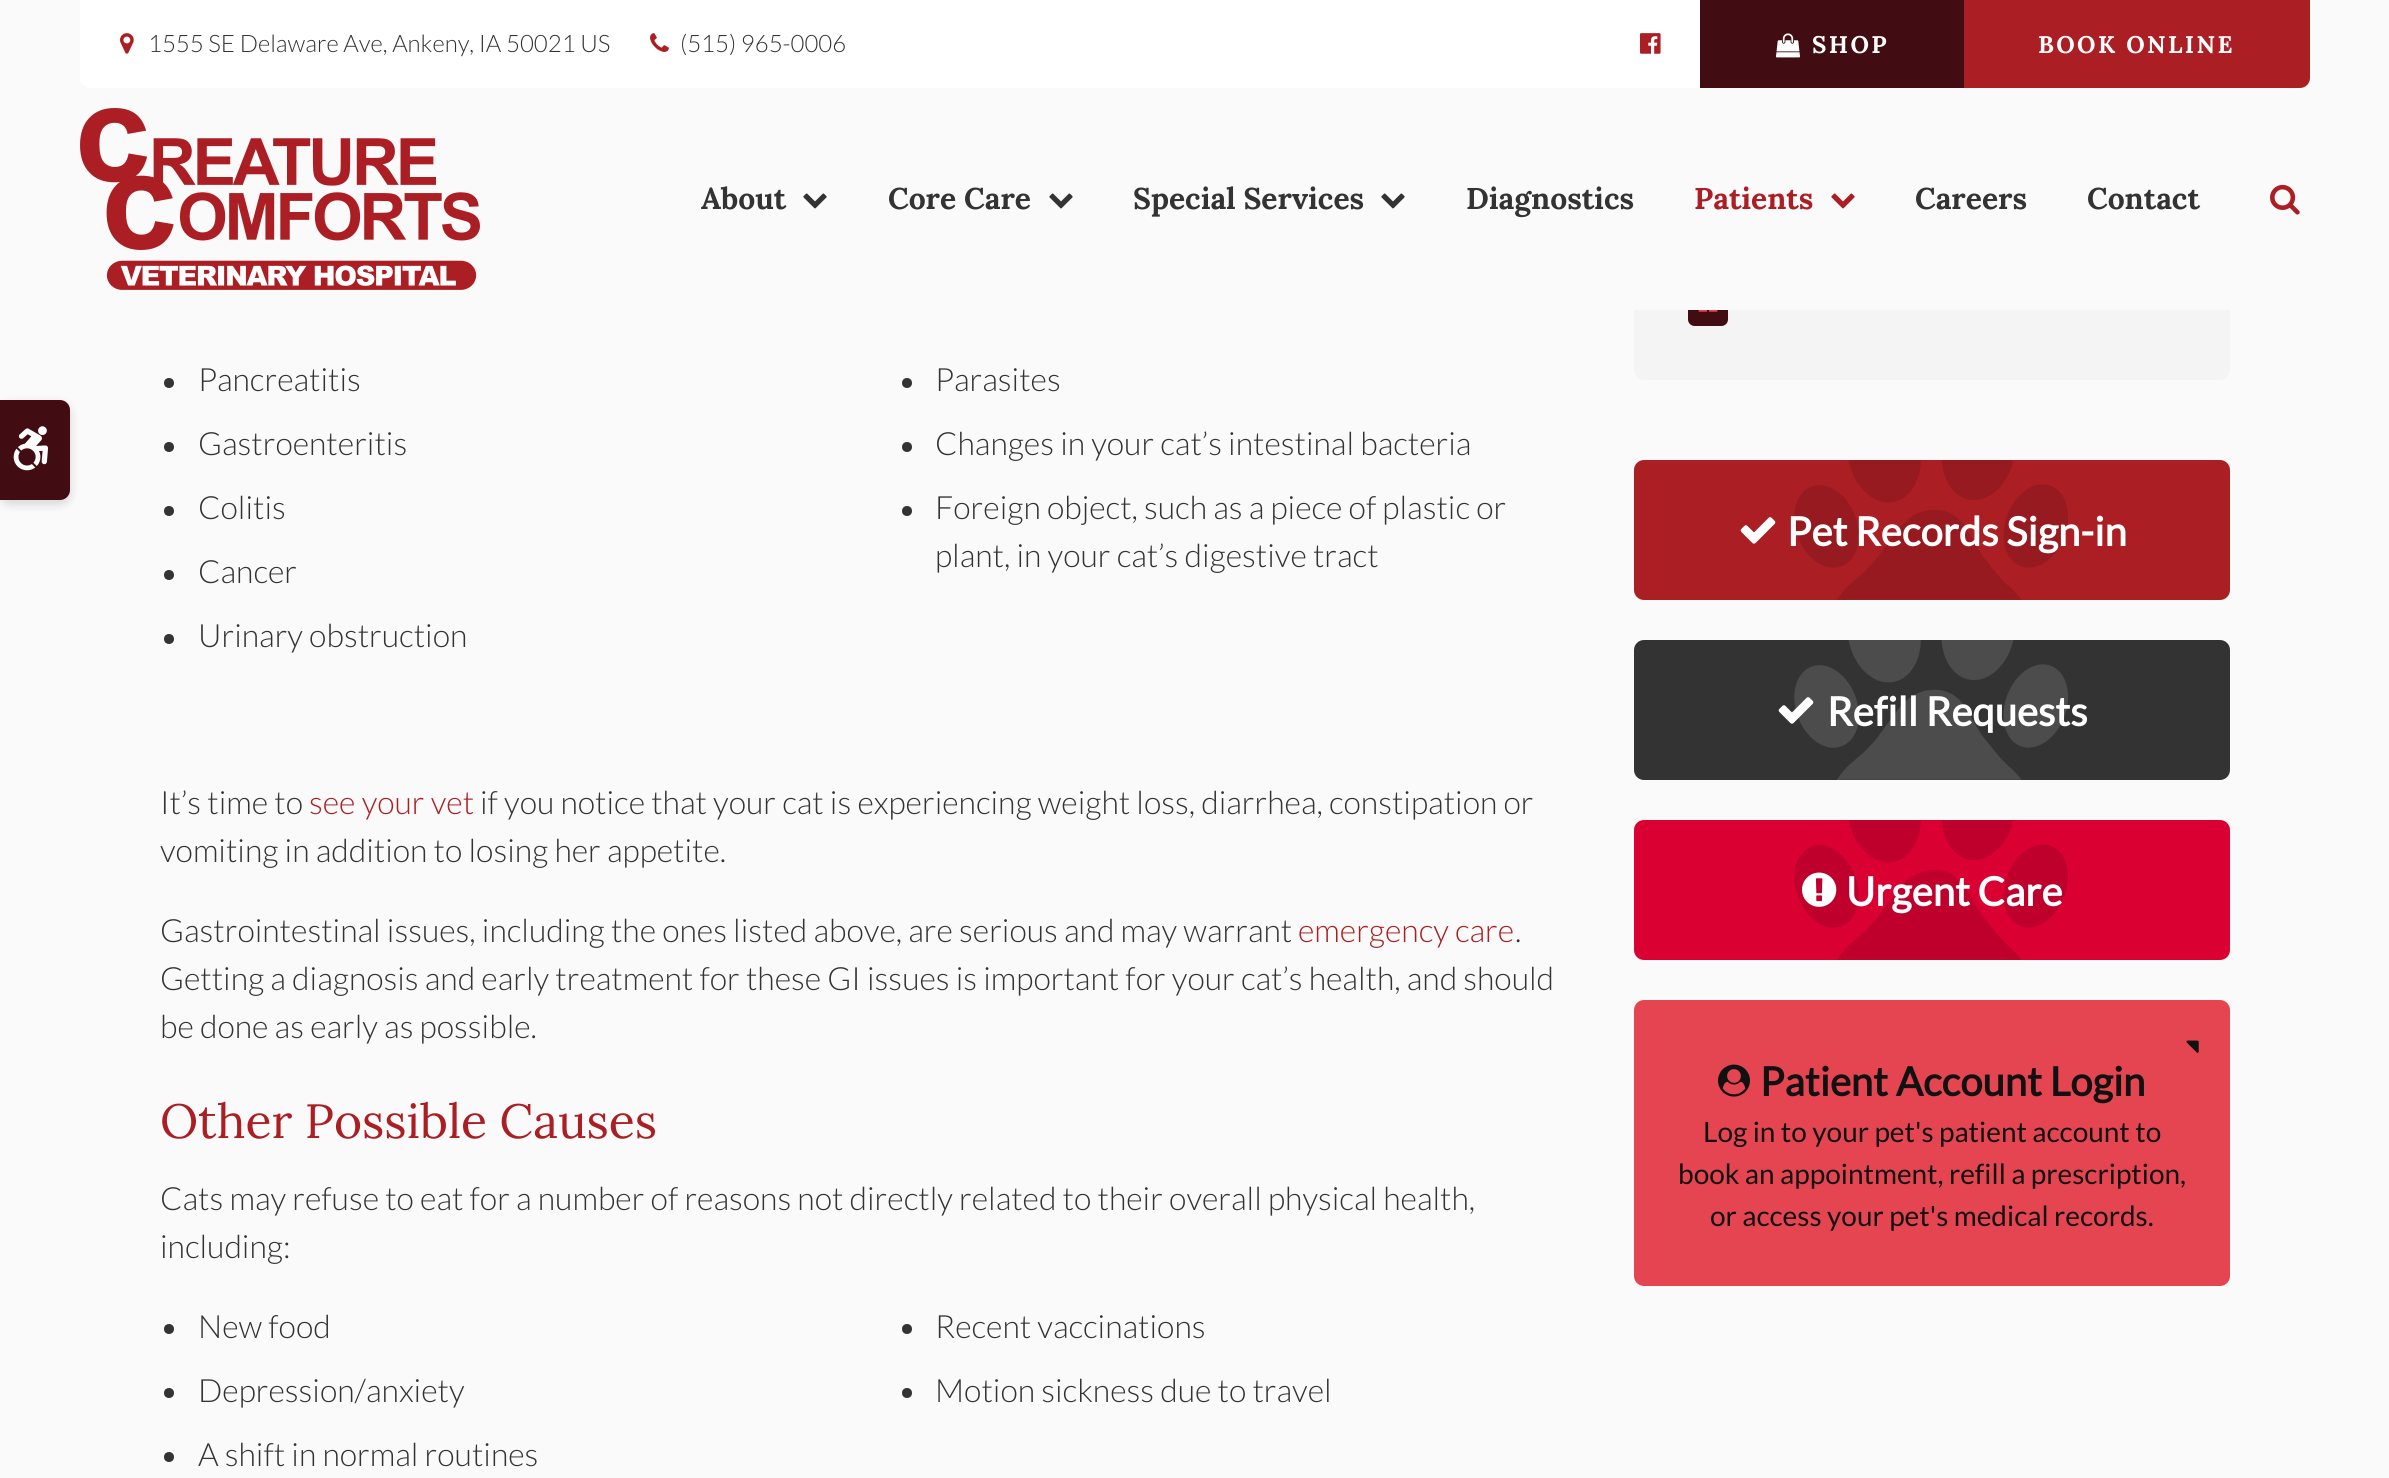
#include <cairo.h>
#include <math.h>
#include <stddef.h>


static void rgb(cairo_t *cr, int r, int g, int b)
{
	cairo_set_source_rgb(cr, r / 255.0, g / 255.0, b / 255.0);
}

static void face(cairo_t *cr, const char *family, double size, int italic, int bold)
{
	cairo_select_font_face(cr, family, italic ? CAIRO_FONT_SLANT_ITALIC : CAIRO_FONT_SLANT_NORMAL,
		bold ? CAIRO_FONT_WEIGHT_BOLD : CAIRO_FONT_WEIGHT_NORMAL);
	cairo_set_font_size(cr, size);
}

static void label(cairo_t *cr, double x, double y, const char *s)
{
	cairo_move_to(cr, x, y);
	cairo_show_text(cr, s);
}

static void tracked(cairo_t *cr, double x, double y, const char *s, double letter, double word)
{
	cairo_move_to(cr, x, y);
	while (*s) {
		char ch[5] = {0};
		int n = 0;
		do ch[n++] = *s++; while ((*s & 0xC0) == 0x80);
		cairo_show_text(cr, ch);
		cairo_rel_move_to(cr, letter + word * (*ch == ' '), 0);
	}
}

static void rect(cairo_t *cr, double x, double y, double w, double h)
{
	cairo_rectangle(cr, x, y, w, h);
	cairo_fill(cr);
}

static void rrect(cairo_t *cr, double x, double y, double w, double h, double r)
{
	cairo_new_sub_path(cr);
	cairo_arc(cr, x + w - r, y + h - r, r, 0, M_PI / 2);
	cairo_arc(cr, x + r, y + h - r, r, M_PI / 2, M_PI);
	cairo_arc(cr, x + r, y + r, r, M_PI, 1.5 * M_PI);
	cairo_arc(cr, x + w - r, y + r, r, 1.5 * M_PI, 2 * M_PI);
	cairo_close_path(cr);
}

static void soft_shadow(cairo_t *cr, double x, double y, double w, double h, double r, double blur, double alpha)
{
	cairo_push_group_with_content(cr, CAIRO_CONTENT_ALPHA);
	cairo_set_operator(cr, CAIRO_OPERATOR_SOURCE);
	for (int i = 15; i >= -15 && fmin(w, h) + blur * i / 3 > 0; i -= 2) {
		double e = blur * i / 6;
		cairo_set_source_rgba(cr, 0, 0, 0, alpha * erfc((i - 1) / 8.5) / 2);
		rrect(cr, x - e, y - e, w + 2 * e, h + 2 * e, fmax(0, fmin(r + e + blur * .6, fmin(w, h) / 2 + e)));
		cairo_fill(cr);
	}
	cairo_pattern_t *soft = cairo_pop_group(cr);
	cairo_mask(cr, soft);
	cairo_pattern_destroy(soft);
}

static void image(cairo_t *cr, const char *path, double x, double y, double w, double h)
{
	cairo_surface_t *image = cairo_image_surface_create_from_png(path);
	cairo_save(cr);
	cairo_set_source_surface(cr, image, x, y);
	cairo_rectangle(cr, x, y, w, h);
	cairo_fill(cr);
	cairo_restore(cr);
	cairo_surface_destroy(image);
}

static void draw(cairo_t *cr) {
	rgb(cr, 250, 250, 250);
	cairo_paint(cr);
	rgb(cr, 244, 244, 244);
	rrect(cr, 1634, -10, 596, 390, 10);
	cairo_fill(cr);
	rgb(cr, 250, 250, 250);
	rect(cr, 1634, 0, 596, 310);
	rgb(cr, 255, 255, 255);
	cairo_new_path(cr);
	cairo_move_to(cr, 80, 0);
	cairo_line_to(cr, 2310, 0);
	cairo_line_to(cr, 2310, 78);
	cairo_curve_to(cr, 2310, 83.5, 2305.5, 88, 2300, 88);
	cairo_line_to(cr, 90, 88);
	cairo_curve_to(cr, 84.5, 88, 80, 83.5, 80, 78);
	cairo_close_path(cr);
	cairo_fill(cr);
	image(cr, "image0.png", 120, 33, 14, 21);
	face(cr, "Lato Light", 24, 0, 0);
	rgb(cr, 51, 51, 51);
	label(cr, 148, 52, "1555 SE Delaware Ave, Ankeny, IA 50021 US");
	image(cr, "image1.png", 650, 33, 19, 19);
	label(cr, 680, 52, "(515) 965-0006");
	image(cr, "image2.png", 1640, 33, 21, 21);
	rgb(cr, 66, 13, 18);
	rect(cr, 1700, 0, 264, 88);
	image(cr, "image3.png", 1776, 33, 24, 25);
	face(cr, "Lora", 24, 0, 1);
	rgb(cr, 255, 255, 255);
	tracked(cr, 1812, 53, "SHOP", 2.4, 0);
	rgb(cr, 171, 30, 35);
	cairo_new_path(cr);
	cairo_move_to(cr, 1964, 0);
	cairo_line_to(cr, 2310, 0);
	cairo_line_to(cr, 2310, 78);
	cairo_curve_to(cr, 2310, 83.5, 2305.5, 88, 2300, 88);
	cairo_line_to(cr, 1964, 88);
	cairo_close_path(cr);
	cairo_fill(cr);
	rgb(cr, 255, 255, 255);
	tracked(cr, 2038, 53, "BOOK ONLINE", 2.4, 0);
	image(cr, "image4.png", 80, 108, 400, 182);
	face(cr, "Lora", 30, 0, 1);
	rgb(cr, 51, 51, 51);
	label(cr, 701, 209, "About");
	image(cr, "image5.png", 803, 193, 24, 16);
	label(cr, 888, 209, "Core Care");
	image(cr, "image5.png", 1049, 193, 24, 16);
	label(cr, 1133, 209, "Special Services");
	image(cr, "image5.png", 1381, 193, 24, 16);
	label(cr, 1466, 209, "Diagnostics");
	rgb(cr, 171, 30, 35);
	label(cr, 1694, 209, "Patients");
	image(cr, "image6.png", 1831, 193, 24, 16);
	rgb(cr, 51, 51, 51);
	label(cr, 1915, 209, "Careers");
	label(cr, 2087, 209, "Contact");
	image(cr, "image7.png", 2270, 184, 30, 31);
	rgb(cr, 0, 0, 0);
	soft_shadow(cr, 0, 404, 70, 100, 10, 5, 0.15);
	rgb(cr, 66, 13, 18);
	cairo_new_path(cr);
	cairo_move_to(cr, 0, 400);
	cairo_line_to(cr, 60, 400);
	cairo_curve_to(cr, 65.5, 400, 70, 404.5, 70, 410);
	cairo_line_to(cr, 70, 490);
	cairo_curve_to(cr, 70, 495.5, 65.5, 500, 60, 500);
	cairo_line_to(cr, 0, 500);
	cairo_close_path(cr);
	cairo_fill(cr);
	image(cr, "image8.png", 13, 426, 35, 45);
	rgb(cr, 51, 51, 51);
	cairo_arc(cr, 169, 383, 5, 0, 2 * M_PI);
	cairo_fill(cr);
	face(cr, "Lato Light", 32, 0, 0);
	label(cr, 198, 391, "Pancreatitis");
	cairo_new_path(cr);
	cairo_arc(cr, 169, 447, 5, 0, 2 * M_PI);
	cairo_fill(cr);
	label(cr, 198, 455, "Gastroenteritis");
	cairo_new_path(cr);
	cairo_arc(cr, 169, 511, 5, 0, 2 * M_PI);
	cairo_fill(cr);
	label(cr, 198, 519, "Colitis");
	cairo_new_path(cr);
	cairo_arc(cr, 169, 575, 5, 0, 2 * M_PI);
	cairo_fill(cr);
	label(cr, 198, 583, "Cancer");
	cairo_new_path(cr);
	cairo_arc(cr, 169, 639, 5, 0, 2 * M_PI);
	cairo_fill(cr);
	label(cr, 198, 647, "Urinary obstruction");
	cairo_new_path(cr);
	cairo_arc(cr, 907, 383, 5, 0, 2 * M_PI);
	cairo_fill(cr);
	label(cr, 935, 391, "Parasites");
	cairo_new_path(cr);
	cairo_arc(cr, 907, 447, 5, 0, 2 * M_PI);
	cairo_fill(cr);
	label(cr, 935, 455, "Changes in your cat’s intestinal bacteria");
	cairo_new_path(cr);
	cairo_arc(cr, 907, 511, 5, 0, 2 * M_PI);
	cairo_fill(cr);
	label(cr, 935, 519, "Foreign object, such as a piece of plastic or");
	label(cr, 935, 567, "plant, in your cat’s digestive tract");
	label(cr, 160, 814, "It’s time to");
	rgb(cr, 171, 30, 35);
	label(cr, 309, 814, "see your vet");
	rgb(cr, 51, 51, 51);
	label(cr, 480, 814, "if you notice that your cat is experiencing weight loss, diarrhea, constipation or");
	label(cr, 160, 862, "vomiting in addition to losing her appetite.");
	label(cr, 160, 942, "Gastrointestinal issues, including the ones listed above, are serious and may warrant");
	rgb(cr, 171, 30, 35);
	label(cr, 1298, 942, "emergency care");
	rgb(cr, 51, 51, 51);
	label(cr, 1515, 942, ".");
	label(cr, 160, 990, "Getting a diagnosis and early treatment for these GI issues is important for your cat’s health, and should");
	label(cr, 160, 1038, "be done as early as possible.");
	face(cr, "Lora", 48, 0, 0);
	rgb(cr, 171, 30, 35);
	label(cr, 160, 1138, "Other Possible Causes");
	face(cr, "Lato Light", 32, 0, 0);
	rgb(cr, 51, 51, 51);
	label(cr, 160, 1210, "Cats may refuse to eat for a number of reasons not directly related to their overall physical health,");
	label(cr, 160, 1258, "including:");
	cairo_new_path(cr);
	cairo_arc(cr, 169, 1329, 5, 0, 2 * M_PI);
	cairo_fill(cr);
	label(cr, 198, 1338, "New food");
	cairo_new_path(cr);
	cairo_arc(cr, 169, 1393, 5, 0, 2 * M_PI);
	cairo_fill(cr);
	label(cr, 198, 1402, "Depression/anxiety");
	cairo_new_path(cr);
	cairo_arc(cr, 169, 1457, 5, 0, 2 * M_PI);
	cairo_fill(cr);
	label(cr, 198, 1466, "A shift in normal routines");
	cairo_new_path(cr);
	cairo_arc(cr, 907, 1329, 5, 0, 2 * M_PI);
	cairo_fill(cr);
	label(cr, 935, 1338, "Recent vaccinations");
	cairo_new_path(cr);
	cairo_arc(cr, 907, 1393, 5, 0, 2 * M_PI);
	cairo_fill(cr);
	label(cr, 935, 1402, "Motion sickness due to travel");
	image(cr, "image9.png", 1688, 310, 40, 16);
	rgb(cr, 171, 30, 35);
	rrect(cr, 1634, 460, 596, 140, 10);
	cairo_fill(cr);
	image(cr, "image10.png", 1794, 460, 274, 140);
	image(cr, "image11.png", 1740, 517, 36, 27);
	face(cr, "Lato", 40, 0, 1);
	rgb(cr, 255, 255, 255);
	label(cr, 1787, 546, "Pet Records Sign-in");
	rgb(cr, 51, 51, 51);
	rrect(cr, 1634, 640, 596, 140, 10);
	cairo_fill(cr);
	image(cr, "image12.png", 1794, 640, 274, 140);
	image(cr, "image13.png", 1778, 697, 36, 27);
	rgb(cr, 255, 255, 255);
	label(cr, 1827, 726, "Refill Requests");
	rgb(cr, 219, 0, 50);
	rrect(cr, 1634, 820, 596, 140, 10);
	cairo_fill(cr);
	image(cr, "image14.png", 1794, 820, 274, 140);
	image(cr, "image15.png", 1802, 872, 35, 35);
	rgb(cr, 255, 255, 255);
	label(cr, 1846, 906, "Urgent Care");
	rgb(cr, 229, 69, 81);
	rrect(cr, 1634, 1000, 596, 286, 10);
	cairo_fill(cr);
	image(cr, "image16.png", 2186, 1040, 13, 13);
	image(cr, "image17.png", 1718, 1064, 32, 33);
	image(cr, "image18.png", 2186, 1040, 13, 13);
	rgb(cr, 17, 17, 17);
	label(cr, 1760, 1096, "Patient Account Login");
	face(cr, "Lato", 28, 0, 0);
	label(cr, 1703, 1142, "Log in to your pet's patient account to");
	label(cr, 1678, 1184, "book an appointment, refill a prescription,");
	label(cr, 1710, 1226, "or access your pet's medical records.");
}

int main(void) {
	cairo_surface_t *surface = cairo_image_surface_create(CAIRO_FORMAT_RGB24, 2389, 1478);
	cairo_t *cr = cairo_create(surface);
	cairo_font_options_t *options = cairo_font_options_create();
	cairo_font_options_set_hint_metrics(options, CAIRO_HINT_METRICS_OFF);
	cairo_font_options_set_hint_style(options, CAIRO_HINT_STYLE_NONE);
	cairo_set_font_options(cr, options);
	cairo_set_miter_limit(cr, 4);
	draw(cr);
	cairo_surface_write_to_png(surface, "render.png");
	cairo_font_options_destroy(options);
	cairo_destroy(cr);
	cairo_surface_destroy(surface);
	return 0;
}
